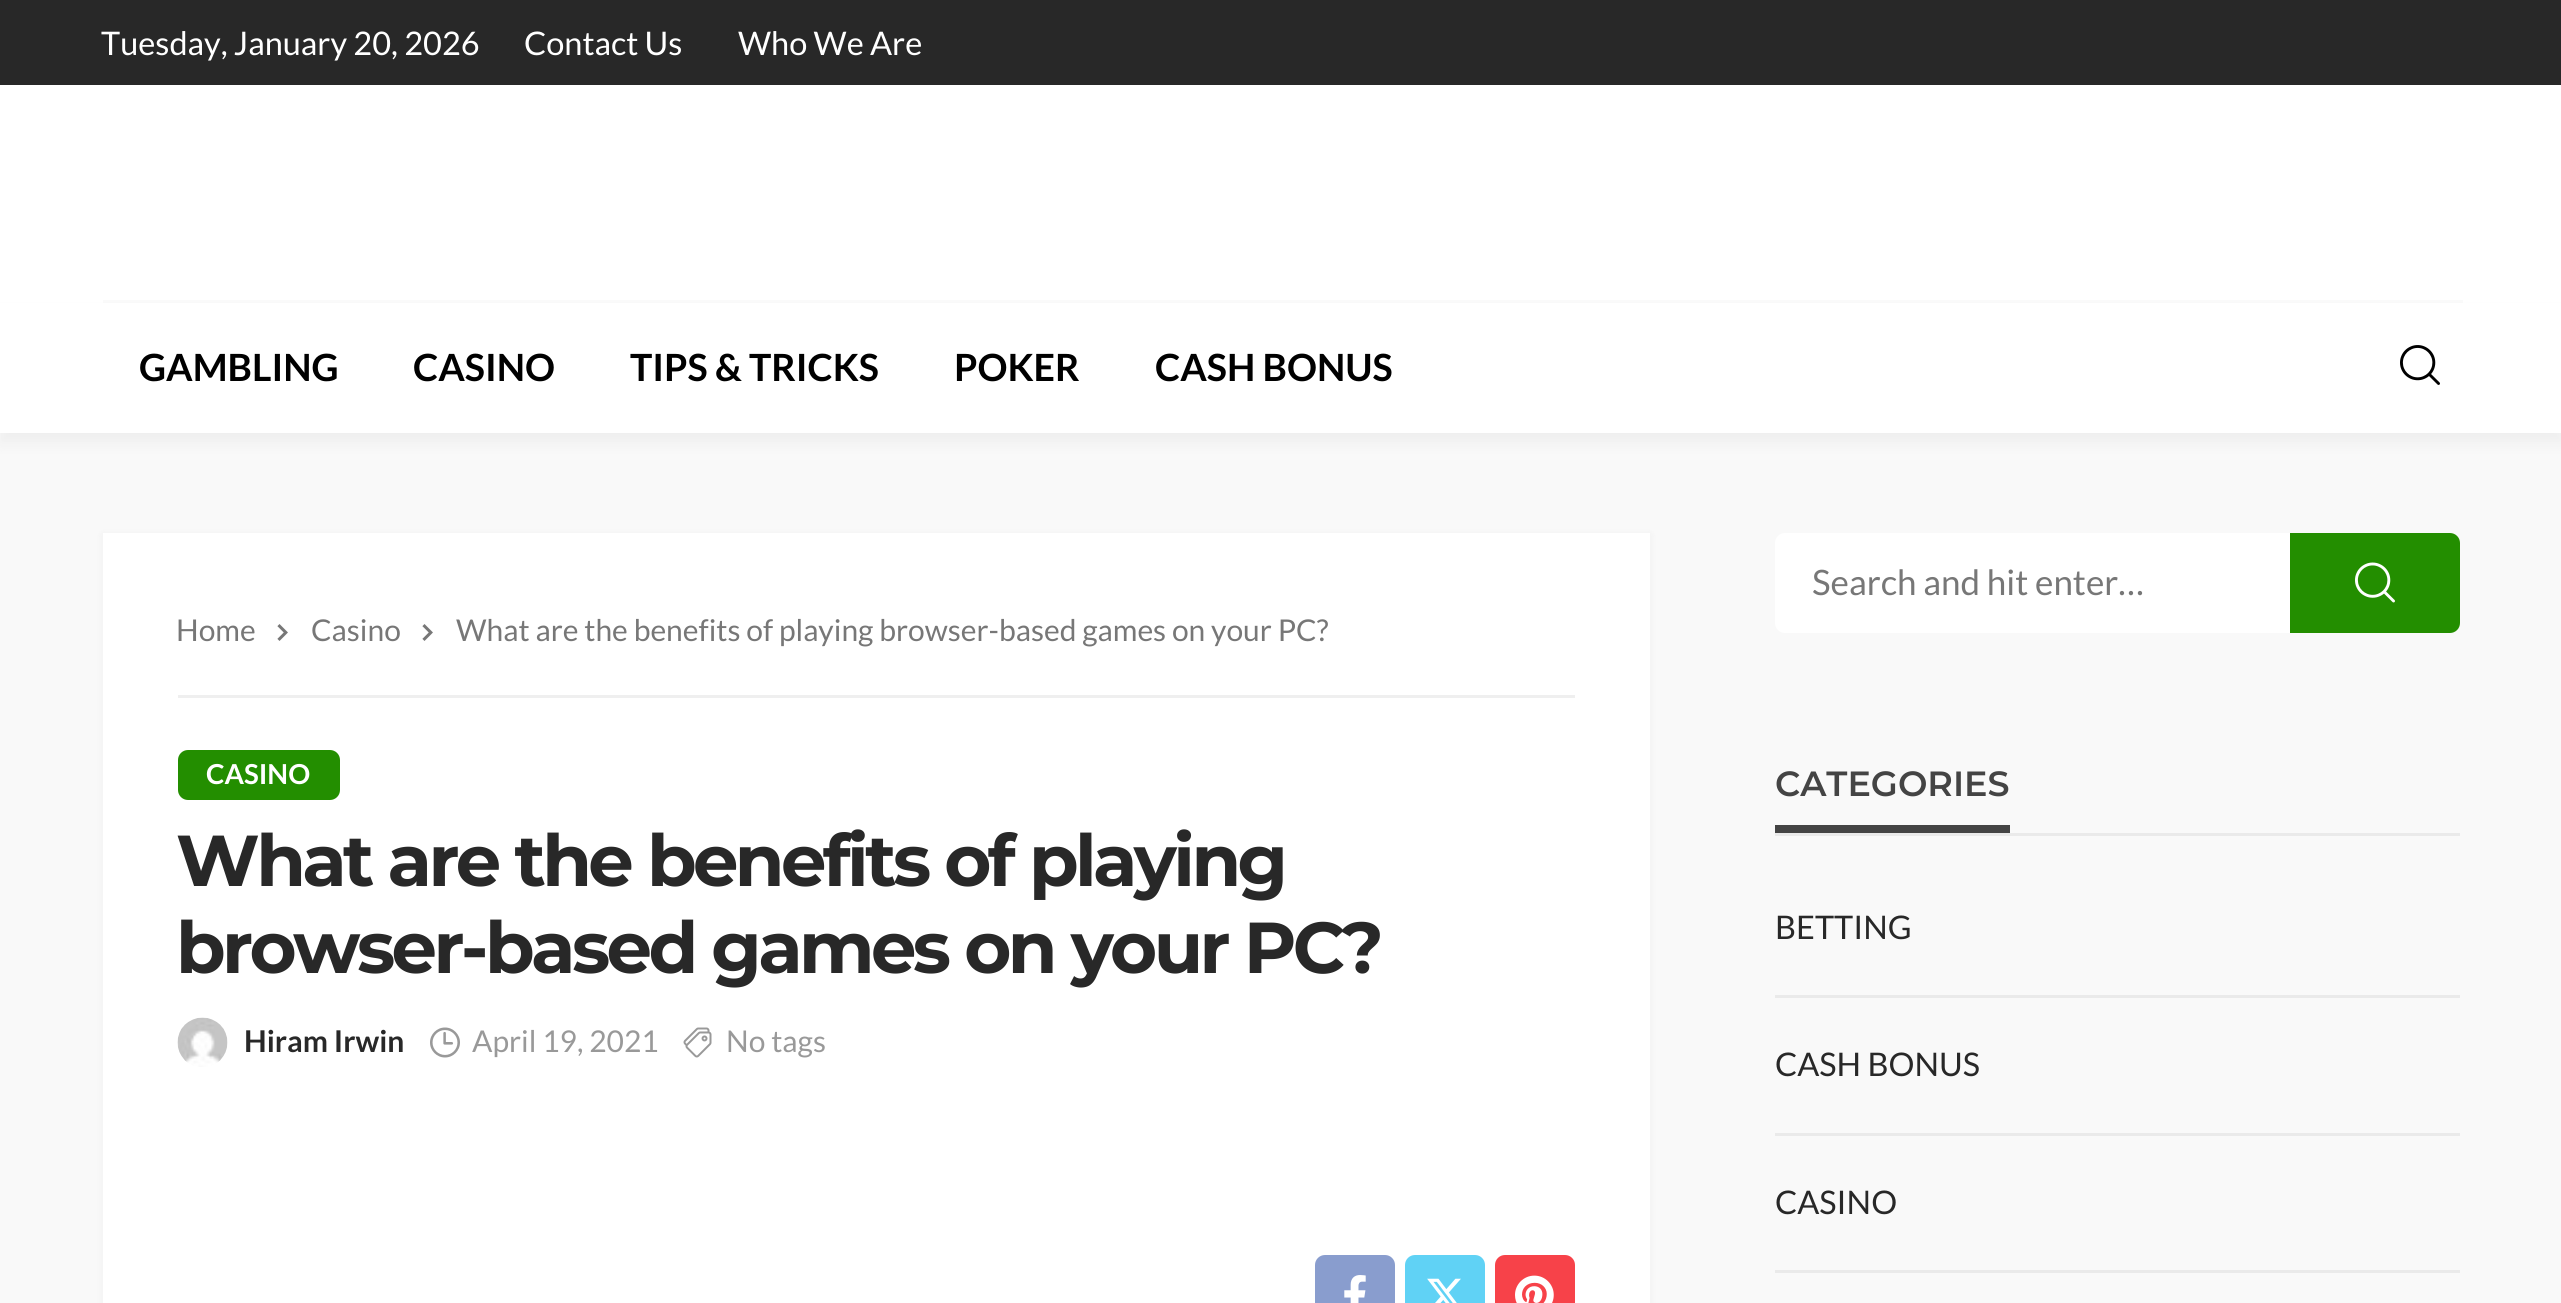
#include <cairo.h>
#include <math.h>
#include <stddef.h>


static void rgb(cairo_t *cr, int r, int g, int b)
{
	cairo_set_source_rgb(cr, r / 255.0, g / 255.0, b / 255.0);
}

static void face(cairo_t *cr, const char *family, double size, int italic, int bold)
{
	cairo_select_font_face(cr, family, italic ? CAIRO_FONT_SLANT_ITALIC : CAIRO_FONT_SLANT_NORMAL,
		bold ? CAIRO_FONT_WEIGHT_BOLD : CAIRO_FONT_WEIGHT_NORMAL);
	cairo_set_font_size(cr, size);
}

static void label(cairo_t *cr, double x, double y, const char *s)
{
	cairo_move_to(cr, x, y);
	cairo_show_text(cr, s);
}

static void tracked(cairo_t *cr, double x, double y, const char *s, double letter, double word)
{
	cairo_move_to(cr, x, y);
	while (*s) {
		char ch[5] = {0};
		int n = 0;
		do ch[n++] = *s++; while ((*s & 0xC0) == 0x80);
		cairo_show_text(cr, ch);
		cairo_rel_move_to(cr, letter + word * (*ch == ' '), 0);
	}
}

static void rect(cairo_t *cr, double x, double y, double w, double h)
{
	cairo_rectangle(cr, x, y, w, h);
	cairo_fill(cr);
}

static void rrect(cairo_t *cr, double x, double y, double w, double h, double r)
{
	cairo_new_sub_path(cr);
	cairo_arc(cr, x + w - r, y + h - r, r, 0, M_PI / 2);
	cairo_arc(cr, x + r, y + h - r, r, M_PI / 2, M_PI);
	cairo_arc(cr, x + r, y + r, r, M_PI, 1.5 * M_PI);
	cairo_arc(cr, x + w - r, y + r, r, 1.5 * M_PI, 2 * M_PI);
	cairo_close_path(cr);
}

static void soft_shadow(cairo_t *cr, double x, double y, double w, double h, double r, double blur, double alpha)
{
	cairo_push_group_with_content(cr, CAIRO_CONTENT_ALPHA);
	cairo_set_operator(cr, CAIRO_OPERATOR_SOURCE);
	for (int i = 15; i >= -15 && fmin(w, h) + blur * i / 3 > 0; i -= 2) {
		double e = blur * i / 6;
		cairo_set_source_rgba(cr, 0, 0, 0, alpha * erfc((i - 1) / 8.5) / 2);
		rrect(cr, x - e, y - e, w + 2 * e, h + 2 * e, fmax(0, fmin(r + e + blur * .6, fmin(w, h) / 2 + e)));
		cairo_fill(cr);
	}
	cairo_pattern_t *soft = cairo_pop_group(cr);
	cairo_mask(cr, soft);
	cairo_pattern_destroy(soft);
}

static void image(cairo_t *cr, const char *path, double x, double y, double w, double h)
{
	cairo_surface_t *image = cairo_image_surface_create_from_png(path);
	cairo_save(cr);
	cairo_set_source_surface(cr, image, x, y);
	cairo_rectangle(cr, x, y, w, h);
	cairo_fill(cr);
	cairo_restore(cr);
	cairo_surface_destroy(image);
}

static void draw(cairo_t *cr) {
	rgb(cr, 249, 249, 249);
	cairo_paint(cr);
	rgb(cr, 40, 40, 40);
	rect(cr, 0, 0, 2561, 85);
	face(cr, "Lato", 32.5, 0, 0);
	rgb(cr, 255, 255, 255);
	label(cr, 101, 55, "Tuesday, January 20, 2026");
	label(cr, 524, 55, "Contact Us");
	label(cr, 738, 55, "Who We Are");
	rect(cr, 0, 85, 2561, 218);
	rgb(cr, 250, 250, 250);
	rect(cr, 103, 300, 2360, 3);
	rgb(cr, 28, 28, 28);
	soft_shadow(cr, 0, 313, 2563, 130, 0, 7.5, 0.05);
	rgb(cr, 255, 255, 255);
	rect(cr, 0, 303, 2561, 130);
	face(cr, "Lato", 37.5, 0, 1);
	rgb(cr, 0, 0, 0);
	label(cr, 139, 381, "GAMBLING");
	label(cr, 413, 381, "CASINO");
	label(cr, 630, 381, "TIPS & TRICKS");
	label(cr, 954, 381, "POKER");
	label(cr, 1155, 381, "CASH BONUS");
	image(cr, "image0.png", 2400, 345, 40, 40);
	rgb(cr, 28, 28, 28);
	soft_shadow(cr, 103, 535, 1547, 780, 0, 4, 0.05);
	rgb(cr, 255, 255, 255);
	rect(cr, 103, 533, 1547, 770);
	rgb(cr, 239, 239, 239);
	rect(cr, 178, 695, 1397, 3);
	face(cr, "Lato", 30, 0, 0);
	rgb(cr, 119, 119, 119);
	label(cr, 176, 641, "Home");
	image(cr, "image1.png", 277, 624, 11, 17);
	label(cr, 311, 641, "Casino");
	image(cr, "image1.png", 422, 624, 11, 17);
	label(cr, 456, 641, "What are the benefits of playing browser-based games on your PC?");
	rgb(cr, 35, 142, 0);
	rrect(cr, 178, 750, 162, 50, 10);
	cairo_fill(cr);
	face(cr, "Lato", 27.5, 0, 1);
	rgb(cr, 255, 255, 255);
	label(cr, 206, 784, "CASINO");
	face(cr, "Montserrat", 72, 0, 1);
	rgb(cr, 40, 40, 40);
	tracked(cr, 176, 886, "What are the benefits of playing", -3.6, 0);
	tracked(cr, 176, 973, "browser-based games on your PC?", -3.6, 0);
	image(cr, "image2.png", 177, 1017, 51, 50);
	face(cr, "Lato", 30, 0, 1);
	label(cr, 244, 1052, "Hiram Irwin");
	image(cr, "image3.png", 430, 1027, 30, 31);
	face(cr, "Lato", 30, 0, 0);
	rgb(cr, 153, 153, 153);
	label(cr, 472, 1052, "April 19, 2021");
	image(cr, "image4.png", 683, 1027, 29, 31);
	label(cr, 726, 1052, "No tags");
	rgb(cr, 137, 157, 206);
	rrect(cr, 1315, 1255, 80, 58, 10);
	cairo_fill(cr);
	image(cr, "image5.png", 1344, 1275, 22, 28);
	rgb(cr, 96, 210, 245);
	rrect(cr, 1405, 1255, 80, 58, 10);
	cairo_fill(cr);
	image(cr, "image6.png", 1427, 1278, 34, 25);
	rgb(cr, 247, 66, 73);
	rrect(cr, 1495, 1255, 80, 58, 10);
	cairo_fill(cr);
	image(cr, "image7.png", 1515, 1275, 39, 28);
	rgb(cr, 255, 255, 255);
	cairo_new_path(cr);
	cairo_move_to(cr, 1785, 533);
	cairo_line_to(cr, 2290, 533);
	cairo_line_to(cr, 2290, 633);
	cairo_line_to(cr, 1785, 633);
	cairo_curve_to(cr, 1779.5, 633, 1775, 628.5, 1775, 623);
	cairo_line_to(cr, 1775, 543);
	cairo_curve_to(cr, 1775, 537.5, 1779.5, 533, 1785, 533);
	cairo_close_path(cr);
	cairo_fill(cr);
	face(cr, "Lato", 35, 0, 0);
	rgb(cr, 119, 119, 119);
	label(cr, 1812, 595, "Search and hit enter…");
	rgb(cr, 35, 142, 0);
	cairo_new_path(cr);
	cairo_move_to(cr, 2290, 533);
	cairo_line_to(cr, 2450, 533);
	cairo_curve_to(cr, 2455.5, 533, 2460, 537.5, 2460, 543);
	cairo_line_to(cr, 2460, 623);
	cairo_curve_to(cr, 2460, 628.5, 2455.5, 633, 2450, 633);
	cairo_line_to(cr, 2290, 633);
	cairo_close_path(cr);
	cairo_fill(cr);
	image(cr, "image8.png", 2355, 562, 40, 41);
	rgb(cr, 234, 234, 234);
	rect(cr, 1775, 833, 685, 3);
	rgb(cr, 68, 68, 68);
	rect(cr, 1775, 825, 235, 8);
	face(cr, "Montserrat SemiBold", 35, 0, 0);
	label(cr, 1775, 796, "CATEGORIES");
	rgb(cr, 234, 234, 234);
	rect(cr, 1775, 995, 685, 3);
	face(cr, "Lato", 32.5, 0, 0);
	rgb(cr, 40, 40, 40);
	label(cr, 1775, 939, "BETTING");
	rgb(cr, 234, 234, 234);
	rect(cr, 1775, 1133, 685, 3);
	rgb(cr, 40, 40, 40);
	label(cr, 1775, 1076, "CASH BONUS");
	rgb(cr, 234, 234, 234);
	rect(cr, 1775, 1270, 685, 3);
	rgb(cr, 40, 40, 40);
	label(cr, 1775, 1214, "CASINO");
}

int main(void) {
	cairo_surface_t *surface = cairo_image_surface_create(CAIRO_FORMAT_RGB24, 2561, 1303);
	cairo_t *cr = cairo_create(surface);
	cairo_font_options_t *options = cairo_font_options_create();
	cairo_font_options_set_hint_metrics(options, CAIRO_HINT_METRICS_OFF);
	cairo_font_options_set_hint_style(options, CAIRO_HINT_STYLE_NONE);
	cairo_set_font_options(cr, options);
	cairo_set_miter_limit(cr, 4);
	draw(cr);
	cairo_surface_write_to_png(surface, "render.png");
	cairo_font_options_destroy(options);
	cairo_destroy(cr);
	cairo_surface_destroy(surface);
	return 0;
}
